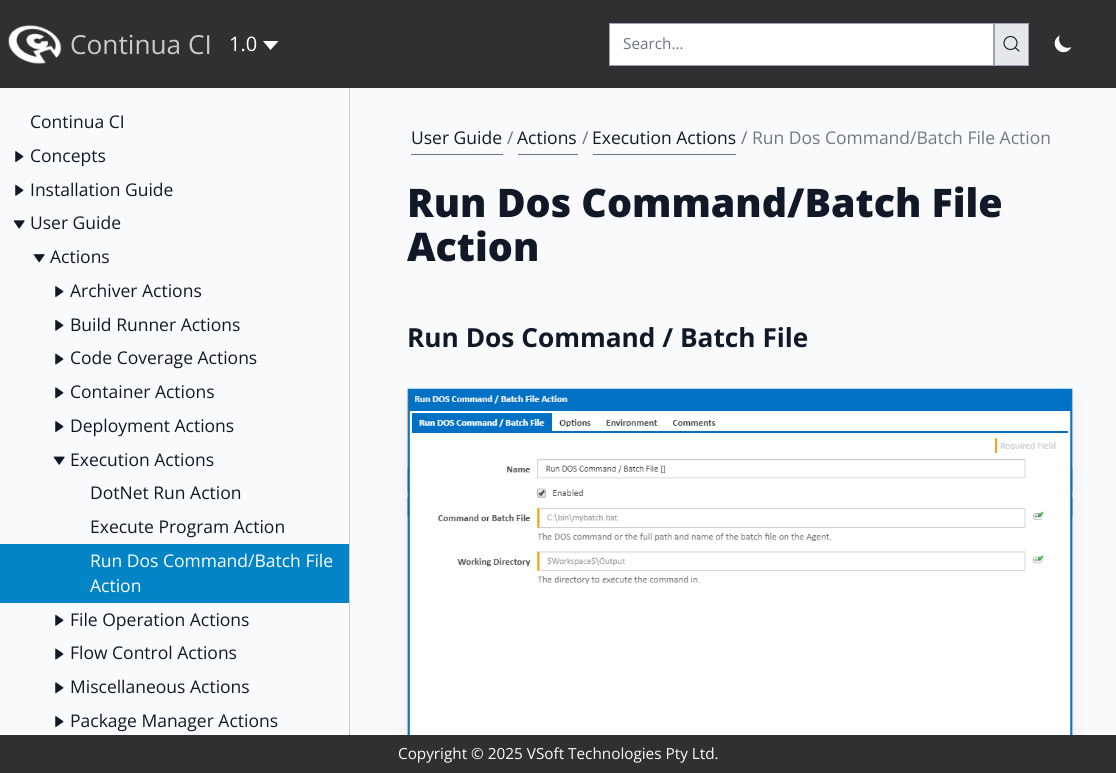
#include <cairo.h>
#include <math.h>
#include <stddef.h>


static void rgb(cairo_t *cr, int r, int g, int b)
{
	cairo_set_source_rgb(cr, r / 255.0, g / 255.0, b / 255.0);
}

static void face(cairo_t *cr, const char *family, double size, int italic, int bold)
{
	cairo_select_font_face(cr, family, italic ? CAIRO_FONT_SLANT_ITALIC : CAIRO_FONT_SLANT_NORMAL,
		bold ? CAIRO_FONT_WEIGHT_BOLD : CAIRO_FONT_WEIGHT_NORMAL);
	cairo_set_font_size(cr, size);
}

static void label(cairo_t *cr, double x, double y, const char *s)
{
	cairo_move_to(cr, x, y);
	cairo_show_text(cr, s);
}

static void rect(cairo_t *cr, double x, double y, double w, double h)
{
	cairo_rectangle(cr, x, y, w, h);
	cairo_fill(cr);
}

static void rrect(cairo_t *cr, double x, double y, double w, double h, double r)
{
	cairo_new_sub_path(cr);
	cairo_arc(cr, x + w - r, y + h - r, r, 0, M_PI / 2);
	cairo_arc(cr, x + r, y + h - r, r, M_PI / 2, M_PI);
	cairo_arc(cr, x + r, y + r, r, M_PI, 1.5 * M_PI);
	cairo_arc(cr, x + w - r, y + r, r, 1.5 * M_PI, 2 * M_PI);
	cairo_close_path(cr);
}

static void soft_shadow(cairo_t *cr, double x, double y, double w, double h, double r, double blur, double alpha)
{
	cairo_push_group_with_content(cr, CAIRO_CONTENT_ALPHA);
	cairo_set_operator(cr, CAIRO_OPERATOR_SOURCE);
	for (int i = 15; i >= -15 && fmin(w, h) + blur * i / 3 > 0; i -= 2) {
		double e = blur * i / 6;
		cairo_set_source_rgba(cr, 0, 0, 0, alpha * erfc((i - 1) / 8.5) / 2);
		rrect(cr, x - e, y - e, w + 2 * e, h + 2 * e, fmax(0, fmin(r + e + blur * .6, fmin(w, h) / 2 + e)));
		cairo_fill(cr);
	}
	cairo_pattern_t *soft = cairo_pop_group(cr);
	cairo_mask(cr, soft);
	cairo_pattern_destroy(soft);
}

static void image(cairo_t *cr, const char *path, double x, double y, double w, double h)
{
	cairo_surface_t *image = cairo_image_surface_create_from_png(path);
	cairo_save(cr);
	cairo_set_source_surface(cr, image, x, y);
	cairo_rectangle(cr, x, y, w, h);
	cairo_fill(cr);
	cairo_restore(cr);
	cairo_surface_destroy(image);
}

static void draw(cairo_t *cr) {
	rgb(cr, 249, 250, 251);
	cairo_paint(cr);
	rgb(cr, 48, 48, 51);
	rect(cr, 0, 0, 1116, 88);
	image(cr, "image0.png", 8, 25, 54, 39);
	face(cr, "Open Sans", 26.25, 0, 0);
	rgb(cr, 201, 201, 204);
	label(cr, 70, 54, "Continua CI");
	face(cr, "Open Sans", 20, 0, 0);
	rgb(cr, 255, 255, 255);
	label(cr, 229, 51, "1.0");
	cairo_new_path(cr);
	cairo_move_to(cr, 270.5, 50);
	cairo_line_to(cr, 263, 41);
	cairo_line_to(cr, 278.5, 41);
	cairo_close_path(cr);
	cairo_fill(cr);
	cairo_rectangle(cr, 609.5, 23.5, 384, 42);
	cairo_fill_preserve(cr);
	rgb(cr, 156, 163, 175);
	cairo_set_line_width(cr, 1);
	cairo_stroke(cr);
	face(cr, "Open Sans", 15.3, 0, 0);
	rgb(cr, 107, 114, 128);
	label(cr, 623, 49, "Search...");
	rgb(cr, 229, 231, 235);
	cairo_rectangle(cr, 994.5, 23.5, 34, 42);
	cairo_fill_preserve(cr);
	rgb(cr, 156, 163, 175);
	cairo_stroke(cr);
	cairo_arc(cr, 1010.5, 43, 6.5, 0, 2 * M_PI);
	rgb(cr, 31, 41, 55);
	cairo_set_line_width(cr, 1.2);
	cairo_stroke(cr);
	cairo_new_path(cr);
	cairo_move_to(cr, 1019, 51);
	cairo_line_to(cr, 1015, 47.5);
	cairo_set_line_cap(cr, CAIRO_LINE_CAP_ROUND);
	cairo_set_line_join(cr, CAIRO_LINE_JOIN_ROUND);
	cairo_stroke(cr);
	image(cr, "image1.png", 1054, 35, 18, 18);
	rgb(cr, 201, 201, 204);
	rect(cr, 349, 88, 1, 647);
	face(cr, "Open Sans", 17.5, 0, 0);
	rgb(cr, 17, 24, 39);
	label(cr, 30, 128, "Continua CI");
	image(cr, "image2.png", 15, 151, 9, 11);
	label(cr, 30, 162, "Concepts");
	image(cr, "image3.png", 15, 184, 9, 12);
	label(cr, 30, 196, "Installation Guide");
	image(cr, "image4.png", 13, 220, 12, 9);
	label(cr, 30, 229, "User Guide");
	image(cr, "image5.png", 33, 254, 12, 9);
	label(cr, 50, 263, "Actions");
	image(cr, "image2.png", 55, 286, 9, 11);
	label(cr, 70, 297, "Archiver Actions");
	image(cr, "image3.png", 55, 319, 9, 12);
	label(cr, 70, 331, "Build Runner Actions");
	image(cr, "image6.png", 55, 353, 9, 12);
	label(cr, 70, 364, "Code Coverage Actions");
	image(cr, "image7.png", 55, 387, 9, 12);
	label(cr, 70, 398, "Container Actions");
	image(cr, "image2.png", 55, 421, 9, 11);
	label(cr, 70, 432, "Deployment Actions");
	image(cr, "image8.png", 53, 456, 12, 9);
	label(cr, 70, 466, "Execution Actions");
	label(cr, 90, 499, "DotNet Run Action");
	label(cr, 90, 533, "Execute Program Action");
	rgb(cr, 2, 132, 199);
	rect(cr, 0, 544, 349, 59);
	rgb(cr, 255, 255, 255);
	label(cr, 90, 567, "Run Dos Command/Batch File");
	label(cr, 90, 592, "Action");
	image(cr, "image3.png", 55, 614, 9, 12);
	rgb(cr, 17, 24, 39);
	label(cr, 70, 626, "File Operation Actions");
	image(cr, "image6.png", 55, 648, 9, 12);
	label(cr, 70, 659, "Flow Control Actions");
	image(cr, "image7.png", 55, 682, 9, 12);
	label(cr, 70, 693, "Miscellaneous Actions");
	image(cr, "image2.png", 55, 716, 9, 11);
	label(cr, 70, 727, "Package Manager Actions");
	label(cr, 411, 144, "User Guide");
	rgb(cr, 107, 114, 128);
	rect(cr, 411, 154, 92, 1);
	label(cr, 507, 144, "/");
	rgb(cr, 17, 24, 39);
	label(cr, 517, 144, "Actions");
	rgb(cr, 107, 114, 128);
	rect(cr, 518, 154, 60, 1);
	label(cr, 582, 144, "/");
	rgb(cr, 17, 24, 39);
	label(cr, 592, 144, "Execution Actions");
	rgb(cr, 107, 114, 128);
	rect(cr, 593, 154, 143, 1);
	label(cr, 741, 144, "/");
	rgb(cr, 113, 121, 132);
	label(cr, 752, 144, "Run Dos Command/Batch File Action");
	face(cr, "Open Sans ExtraBold", 39.4, 0, 0);
	rgb(cr, 17, 24, 39);
	label(cr, 407, 217, "Run Dos Command/Batch File");
	label(cr, 407, 261, "Action");
	face(cr, "Open Sans", 26.25, 0, 1);
	label(cr, 407, 347, "Run Dos Command / Batch File");
	rgb(cr, 48, 48, 51);
	rect(cr, 0, 735, 1116, 38);
	cairo_save(cr);
	cairo_rectangle(cr, 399, 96, 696, 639);
	cairo_clip(cr);
	rgb(cr, 0, 0, 0);
	soft_shadow(cr, 411, 405, 658, 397, 0, 9.5, 0.1);
	cairo_restore(cr);
	image(cr, "image9.png", 407, 388, 666, 347);
	face(cr, "Open Sans", 15.3, 0, 0);
	rgb(cr, 249, 250, 251);
	label(cr, 398, 759, "Copyright © 2025 VSoft Technologies Pty Ltd.");
}

int main(void) {
	cairo_surface_t *surface = cairo_image_surface_create(CAIRO_FORMAT_RGB24, 1116, 773);
	cairo_t *cr = cairo_create(surface);
	cairo_font_options_t *options = cairo_font_options_create();
	cairo_font_options_set_hint_metrics(options, CAIRO_HINT_METRICS_OFF);
	cairo_font_options_set_hint_style(options, CAIRO_HINT_STYLE_NONE);
	cairo_set_font_options(cr, options);
	cairo_set_miter_limit(cr, 4);
	draw(cr);
	cairo_surface_write_to_png(surface, "render.png");
	cairo_font_options_destroy(options);
	cairo_destroy(cr);
	cairo_surface_destroy(surface);
	return 0;
}
